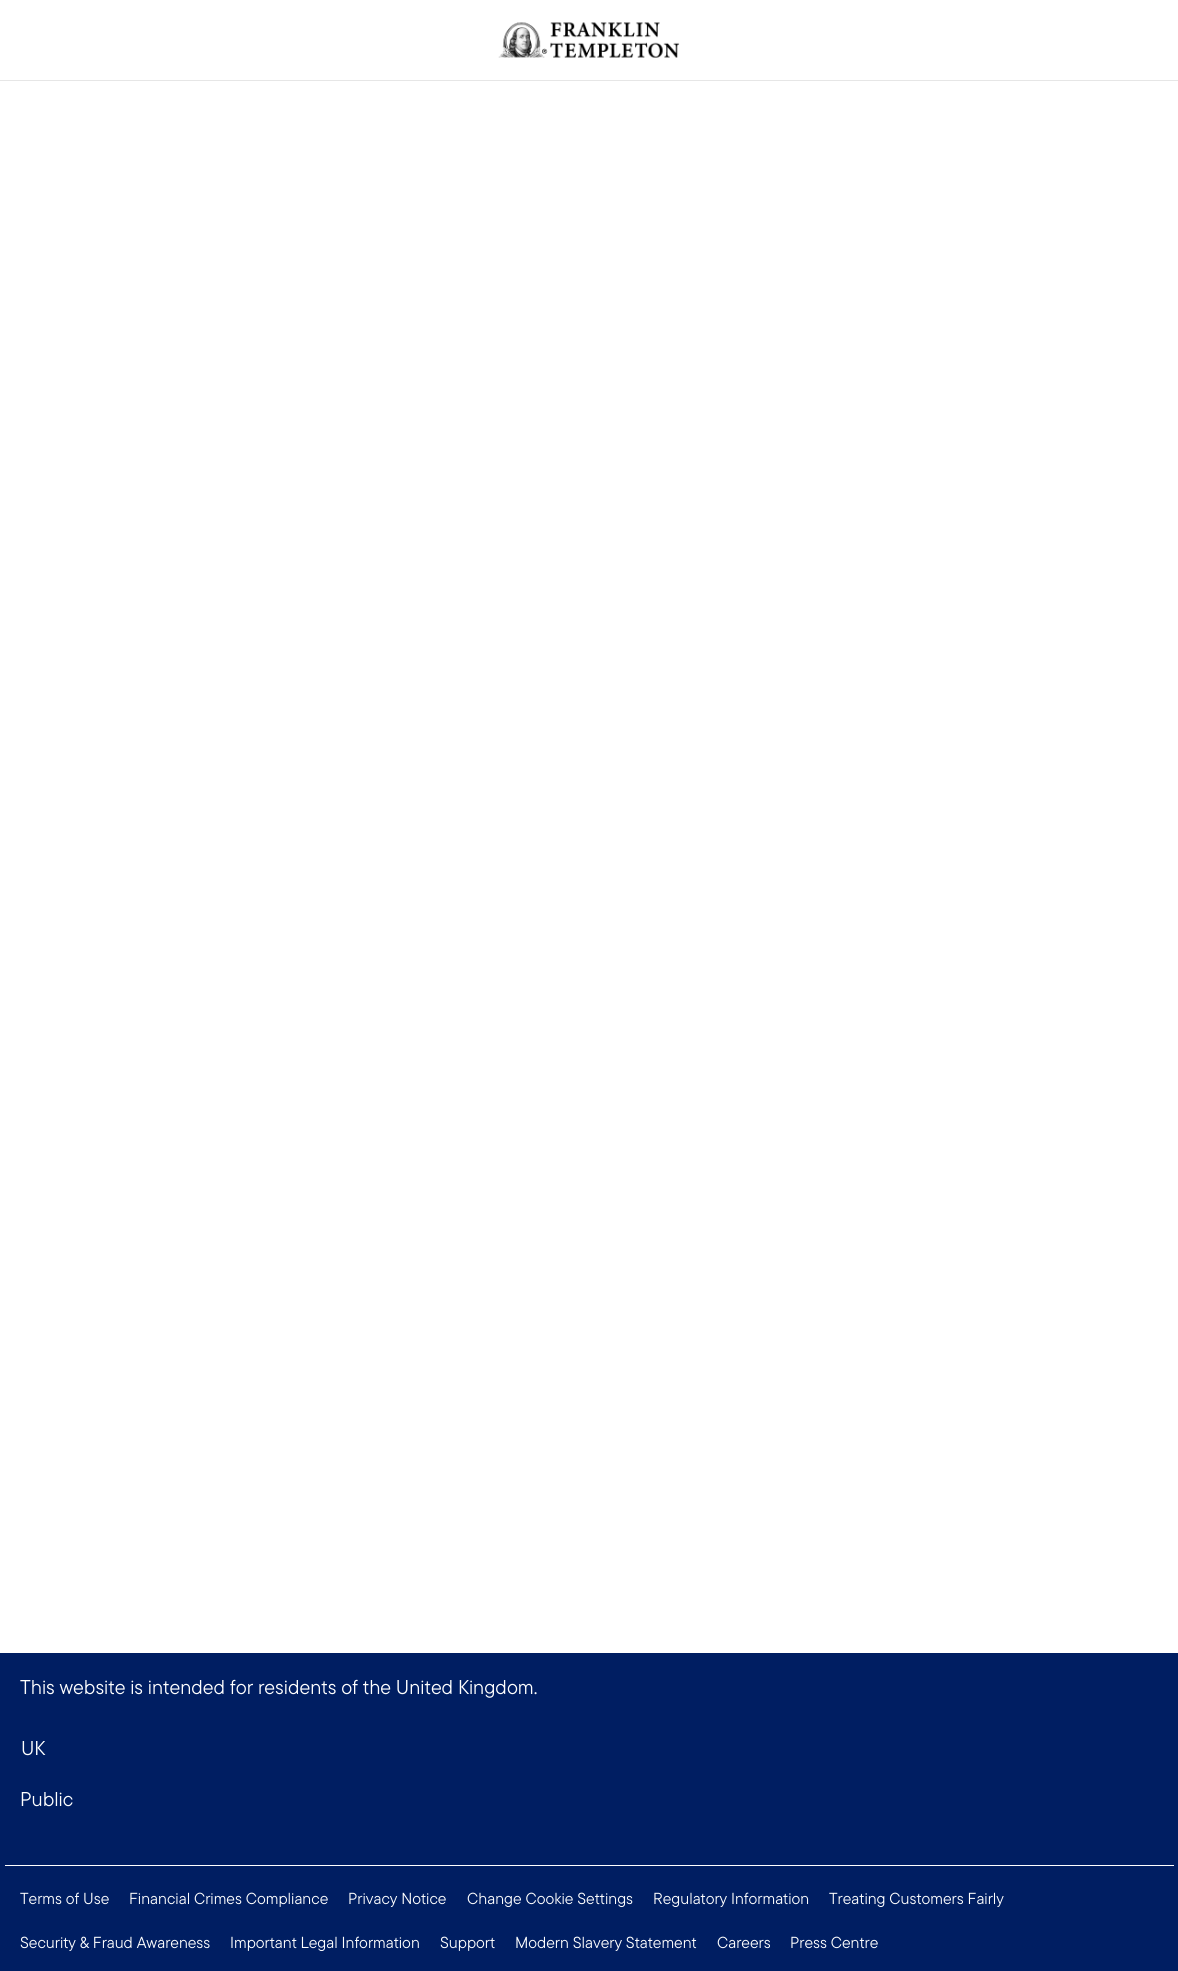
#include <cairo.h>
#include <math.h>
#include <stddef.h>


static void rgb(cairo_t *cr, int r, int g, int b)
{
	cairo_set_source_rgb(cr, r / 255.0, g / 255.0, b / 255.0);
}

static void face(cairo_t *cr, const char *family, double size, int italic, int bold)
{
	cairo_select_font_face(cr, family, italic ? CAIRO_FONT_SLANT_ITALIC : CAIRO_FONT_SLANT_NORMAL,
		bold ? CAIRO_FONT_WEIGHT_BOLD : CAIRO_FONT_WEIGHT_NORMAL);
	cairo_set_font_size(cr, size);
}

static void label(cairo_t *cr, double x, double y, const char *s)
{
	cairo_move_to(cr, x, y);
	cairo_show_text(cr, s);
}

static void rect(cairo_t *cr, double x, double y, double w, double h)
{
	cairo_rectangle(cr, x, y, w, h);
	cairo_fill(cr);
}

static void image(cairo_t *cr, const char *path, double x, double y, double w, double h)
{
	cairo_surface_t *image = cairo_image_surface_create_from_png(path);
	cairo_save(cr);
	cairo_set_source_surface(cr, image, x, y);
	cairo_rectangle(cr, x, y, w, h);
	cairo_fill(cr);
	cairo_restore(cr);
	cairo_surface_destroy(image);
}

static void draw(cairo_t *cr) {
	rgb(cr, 255, 255, 255);
	cairo_paint(cr);
	rgb(cr, 230, 230, 230);
	rect(cr, 0, 80, 1178, 1);
	image(cr, "image0.png", 498, 22, 182, 36);
	rgb(cr, 0, 30, 98);
	rect(cr, 0, 1653, 1178, 318);
	face(cr, "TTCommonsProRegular", 20, 0, 0);
	rgb(cr, 255, 255, 255);
	label(cr, 20, 1694, "This website is intended for residents of the United Kingdom.");
	label(cr, 21, 1755, "UK");
	label(cr, 20, 1806, "Public");
	rect(cr, 5, 1865, 1169, 1);
	face(cr, "TTCommonsProRegular", 16, 0, 0);
	label(cr, 20, 1904, "Terms of Use");
	label(cr, 129, 1904, "Financial Crimes Compliance");
	label(cr, 348, 1904, "Privacy Notice");
	label(cr, 467, 1904, "Change Cookie Settings");
	label(cr, 653, 1904, "Regulatory Information");
	label(cr, 829, 1904, "Treating Customers Fairly");
	label(cr, 20, 1948, "Security & Fraud Awareness");
	label(cr, 230, 1948, "Important Legal Information");
	label(cr, 440, 1948, "Support");
	label(cr, 515, 1948, "Modern Slavery Statement");
	label(cr, 717, 1948, "Careers");
	label(cr, 790, 1948, "Press Centre");
}

int main(void) {
	cairo_surface_t *surface = cairo_image_surface_create(CAIRO_FORMAT_RGB24, 1178, 1971);
	cairo_t *cr = cairo_create(surface);
	cairo_font_options_t *options = cairo_font_options_create();
	cairo_font_options_set_hint_metrics(options, CAIRO_HINT_METRICS_OFF);
	cairo_font_options_set_hint_style(options, CAIRO_HINT_STYLE_NONE);
	cairo_set_font_options(cr, options);
	cairo_set_miter_limit(cr, 4);
	draw(cr);
	cairo_surface_write_to_png(surface, "render.png");
	cairo_font_options_destroy(options);
	cairo_destroy(cr);
	cairo_surface_destroy(surface);
	return 0;
}
